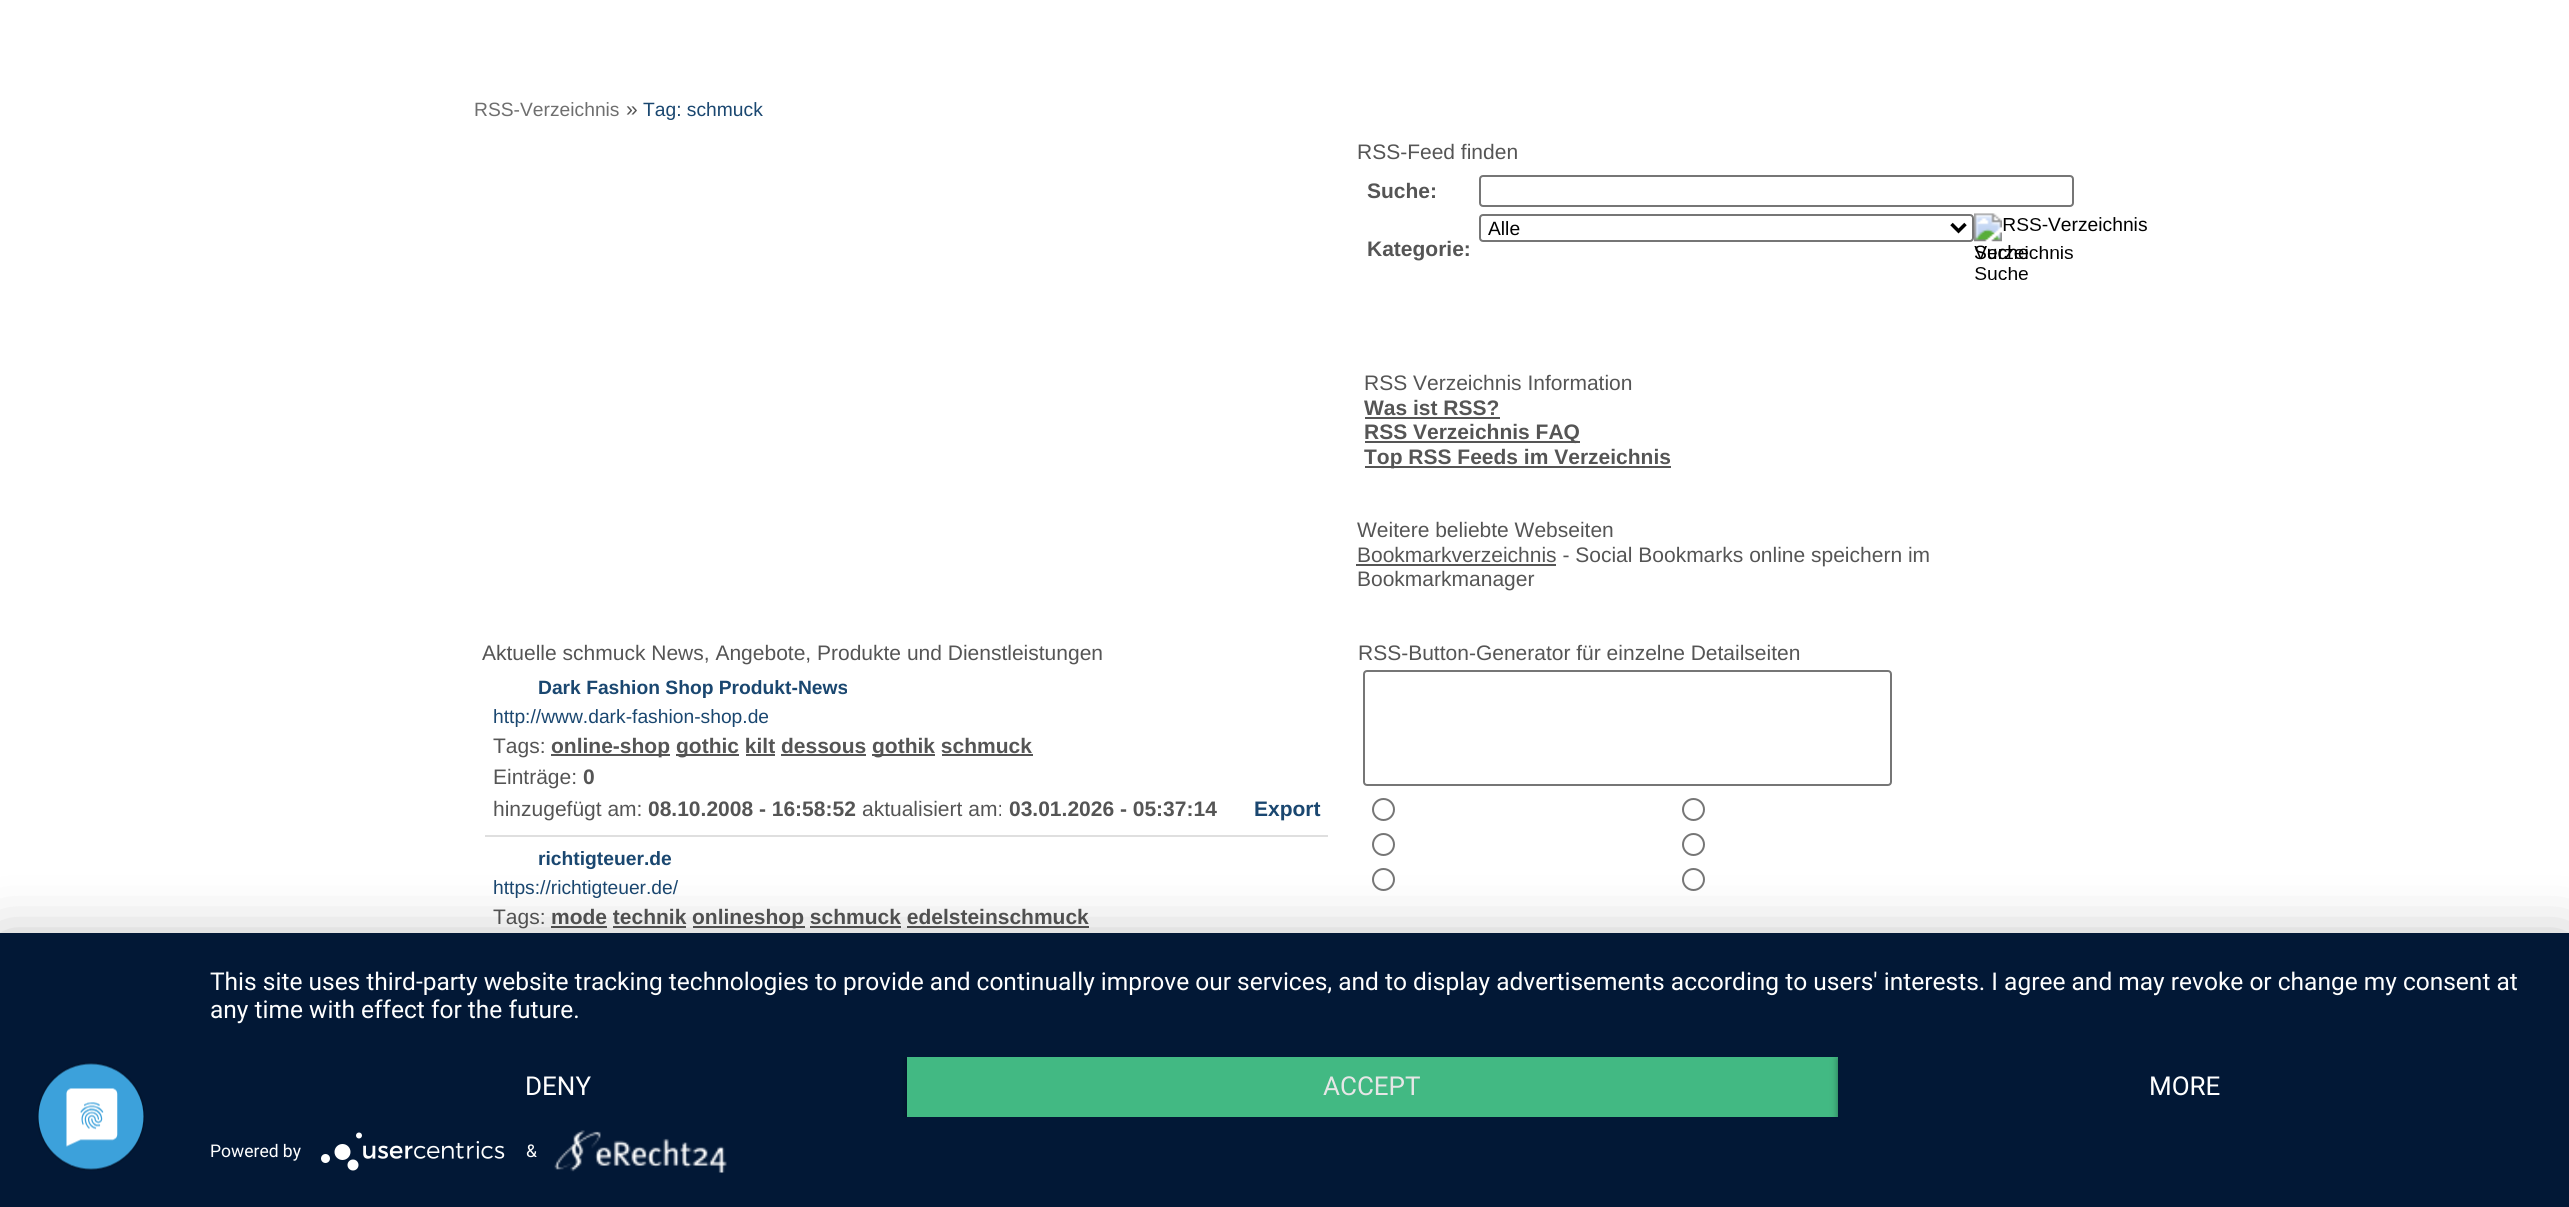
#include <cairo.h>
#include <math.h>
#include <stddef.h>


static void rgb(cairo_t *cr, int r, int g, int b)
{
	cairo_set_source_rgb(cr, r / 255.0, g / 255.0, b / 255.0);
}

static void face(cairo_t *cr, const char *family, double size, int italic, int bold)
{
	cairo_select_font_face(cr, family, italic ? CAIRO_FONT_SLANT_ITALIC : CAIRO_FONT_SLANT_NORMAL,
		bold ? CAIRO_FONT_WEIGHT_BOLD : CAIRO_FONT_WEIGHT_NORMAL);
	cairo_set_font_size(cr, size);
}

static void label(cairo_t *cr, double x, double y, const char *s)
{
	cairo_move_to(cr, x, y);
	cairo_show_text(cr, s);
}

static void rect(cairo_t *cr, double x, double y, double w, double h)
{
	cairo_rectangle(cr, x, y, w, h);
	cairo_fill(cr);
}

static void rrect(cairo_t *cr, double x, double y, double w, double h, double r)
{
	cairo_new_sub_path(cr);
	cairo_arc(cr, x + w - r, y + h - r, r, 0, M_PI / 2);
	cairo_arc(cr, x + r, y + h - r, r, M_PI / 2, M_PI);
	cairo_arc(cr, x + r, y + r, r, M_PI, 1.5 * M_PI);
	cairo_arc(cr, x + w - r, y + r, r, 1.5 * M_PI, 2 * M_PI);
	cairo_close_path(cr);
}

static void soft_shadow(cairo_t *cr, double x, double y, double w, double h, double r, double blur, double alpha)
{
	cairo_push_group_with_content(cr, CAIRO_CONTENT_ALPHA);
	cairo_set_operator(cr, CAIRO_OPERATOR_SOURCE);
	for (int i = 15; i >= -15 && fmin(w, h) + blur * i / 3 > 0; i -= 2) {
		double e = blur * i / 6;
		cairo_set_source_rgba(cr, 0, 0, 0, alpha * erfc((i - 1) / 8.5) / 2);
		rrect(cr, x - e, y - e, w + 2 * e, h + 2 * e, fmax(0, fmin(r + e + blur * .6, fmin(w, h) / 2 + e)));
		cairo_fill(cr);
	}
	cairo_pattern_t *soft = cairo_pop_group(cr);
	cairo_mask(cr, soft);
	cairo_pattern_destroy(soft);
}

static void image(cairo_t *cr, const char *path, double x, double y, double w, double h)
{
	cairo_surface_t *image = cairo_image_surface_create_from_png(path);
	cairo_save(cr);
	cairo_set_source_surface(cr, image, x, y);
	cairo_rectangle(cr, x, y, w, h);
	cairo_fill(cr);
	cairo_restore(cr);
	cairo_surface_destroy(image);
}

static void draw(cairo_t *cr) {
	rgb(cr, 255, 255, 255);
	cairo_paint(cr);
	face(cr, "Liberation Sans", 19.25, 0, 0);
	rgb(cr, 111, 111, 111);
	label(cr, 474, 116, "RSS-Verzeichnis");
	face(cr, "Liberation Sans", 21, 0, 0);
	rgb(cr, 85, 85, 85);
	label(cr, 626, 116, "»");
	face(cr, "Liberation Sans", 19.25, 0, 0);
	rgb(cr, 26, 71, 112);
	label(cr, 643, 116, "Tag: schmuck");
	face(cr, "Liberation Sans", 21, 0, 0);
	rgb(cr, 85, 85, 85);
	label(cr, 1357, 159, "RSS-Feed finden");
	face(cr, "Liberation Sans", 21, 0, 1);
	label(cr, 1367, 198, "Suche:");
	rrect(cr, 1480, 176, 593, 30, 3);
	rgb(cr, 118, 118, 118);
	cairo_stroke(cr);
	rgb(cr, 85, 85, 85);
	label(cr, 1367, 256, "Kategorie:");
	rrect(cr, 1480, 215, 493, 26, 3);
	rgb(cr, 118, 118, 118);
	cairo_stroke(cr);
	cairo_new_path(cr);
	cairo_move_to(cr, 1951.5, 224);
	cairo_line_to(cr, 1958.5, 231);
	cairo_line_to(cr, 1965.5, 224);
	rgb(cr, 0, 0, 0);
	cairo_set_line_width(cr, 3.5);
	cairo_stroke(cr);
	face(cr, "Liberation Sans", 19.25, 0, 0);
	label(cr, 1488, 235, "Alle");
	image(cr, "image0.png", 1974, 213, 99, 67);
	label(cr, 2048, 231, "Verzeichnis");
	label(cr, 1974, 259, "Suche");
	face(cr, "Liberation Sans", 21, 0, 0);
	rgb(cr, 85, 85, 85);
	label(cr, 1364, 390, "RSS Verzeichnis Information");
	face(cr, "Liberation Sans", 21, 0, 1);
	label(cr, 1364, 415, "Was ist RSS?");
	rect(cr, 1365, 417, 135, 2);
	rect(cr, 1365, 441, 215, 2);
	label(cr, 1364, 439, "RSS Verzeichnis FAQ");
	rect(cr, 1365, 466, 306, 2);
	label(cr, 1364, 464, "Top RSS Feeds im Verzeichnis");
	face(cr, "Liberation Sans", 21, 0, 0);
	label(cr, 1357, 537, "Weitere beliebte Webseiten");
	rect(cr, 1356, 564, 200, 2);
	label(cr, 1357, 562, "Bookmarkverzeichnis - Social Bookmarks online speichern im");
	label(cr, 1357, 586, "Bookmarkmanager");
	label(cr, 1358, 660, "RSS-Button-Generator für einzelne Detailseiten");
	rrect(cr, 1364, 671, 527, 114, 3);
	rgb(cr, 118, 118, 118);
	cairo_set_line_width(cr, 2);
	cairo_stroke(cr);
	cairo_arc(cr, 1383.5, 809.5, 10.5, 0, 2 * M_PI);
	cairo_stroke(cr);
	cairo_arc(cr, 1693.5, 809.5, 10.5, 0, 2 * M_PI);
	cairo_stroke(cr);
	cairo_arc(cr, 1383.5, 844.5, 10.5, 0, 2 * M_PI);
	cairo_stroke(cr);
	cairo_arc(cr, 1693.5, 844.5, 10.5, 0, 2 * M_PI);
	cairo_stroke(cr);
	cairo_arc(cr, 1383.5, 879.5, 10.5, 0, 2 * M_PI);
	cairo_stroke(cr);
	cairo_arc(cr, 1693.5, 879.5, 10.5, 0, 2 * M_PI);
	cairo_stroke(cr);
	rgb(cr, 85, 85, 85);
	label(cr, 482, 660, "Aktuelle schmuck News, Angebote, Produkte und Dienstleistungen");
	face(cr, "Liberation Sans", 19.25, 0, 1);
	rgb(cr, 26, 71, 112);
	label(cr, 538, 694, "Dark Fashion Shop Produkt-News");
	face(cr, "Liberation Sans", 19.25, 0, 0);
	label(cr, 493, 723, "http://www.dark-fashion-shop.de");
	face(cr, "Liberation Sans", 21, 0, 0);
	rgb(cr, 85, 85, 85);
	label(cr, 493, 753, "Tags:");
	rect(cr, 551, 754, 119, 2);
	face(cr, "Liberation Sans", 21, 0, 1);
	label(cr, 551, 753, "online-shop");
	rect(cr, 676, 754, 63, 2);
	label(cr, 676, 753, "gothic kilt dessous");
	rect(cr, 746, 754, 29, 2);
	rect(cr, 781, 754, 85, 2);
	rect(cr, 872, 754, 63, 2);
	label(cr, 872, 753, "gothik schmuck");
	rect(cr, 942, 754, 91, 2);
	face(cr, "Liberation Sans", 21, 0, 0);
	label(cr, 493, 784, "Einträge:");
	face(cr, "Liberation Sans", 21, 0, 1);
	label(cr, 583, 784, "0");
	face(cr, "Liberation Sans", 21, 0, 0);
	label(cr, 493, 816, "hinzugefügt am:");
	face(cr, "Liberation Sans", 21, 0, 1);
	label(cr, 648, 816, "08.10.2008 - 16:58:52");
	face(cr, "Liberation Sans", 21, 0, 0);
	label(cr, 862, 816, "aktualisiert am:");
	face(cr, "Liberation Sans", 21, 0, 1);
	label(cr, 1009, 816, "03.01.2026 - 05:37:14");
	rgb(cr, 26, 71, 112);
	label(cr, 1254, 816, "Export");
	rgb(cr, 223, 223, 223);
	rect(cr, 485, 835, 843, 2);
	face(cr, "Liberation Sans", 19.25, 0, 1);
	rgb(cr, 26, 71, 112);
	label(cr, 538, 865, "richtigteuer.de");
	face(cr, "Liberation Sans", 19.25, 0, 0);
	label(cr, 493, 894, "https://richtigteuer.de/");
	face(cr, "Liberation Sans", 21, 0, 0);
	rgb(cr, 85, 85, 85);
	label(cr, 493, 924, "Tags:");
	face(cr, "Liberation Sans", 21, 0, 1);
	label(cr, 551, 924, "mode technik");
	rect(cr, 551, 926, 56, 2);
	rect(cr, 613, 926, 73, 2);
	rect(cr, 693, 926, 112, 2);
	label(cr, 692, 924, "onlineshop schmuck edelsteinschmuck");
	rect(cr, 810, 926, 91, 2);
	rect(cr, 907, 926, 182, 2);
	rgb(cr, 0, 0, 0);
	soft_shadow(cr, 0, 943, 2569, 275, 0, 31.5, 0.3);
	rgb(cr, 2, 24, 54);
	rect(cr, 0, 933, 2569, 274);
	image(cr, "image1.png", 37, 1062, 108, 109);
	face(cr, "Roboto", 24.5, 0, 0);
	rgb(cr, 255, 255, 255);
	label(cr, 210, 990, "This site uses third-party website tracking technologies to provide and continually improve our services, and to display advertisements according to users' interests. I agree and may revoke or change my consent at");
	label(cr, 210, 1018, "any time with effect for the future.");
	face(cr, "Roboto", 26, 0, 0);
	label(cr, 525, 1095, "DENY");
	cairo_save(cr);
	cairo_rectangle(cr, 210, 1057, 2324, 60);
	cairo_clip(cr);
	rgb(cr, 0, 0, 0);
	soft_shadow(cr, 907, 1059, 931, 59, 0, 3.5, 0.4);
	cairo_restore(cr);
	rgb(cr, 66, 185, 131);
	rect(cr, 907, 1057, 931, 60);
	rgb(cr, 230, 230, 230);
	label(cr, 1323, 1095, "ACCEPT");
	cairo_save(cr);
	cairo_rectangle(cr, 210, 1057, 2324, 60);
	cairo_clip(cr);
	rgb(cr, 0, 0, 0);
	soft_shadow(cr, 1838, 1059, 696, 59, 0, 3.5, 0.4);
	cairo_restore(cr);
	rgb(cr, 2, 24, 54);
	rect(cr, 1838, 1057, 696, 60);
	rgb(cr, 255, 255, 255);
	label(cr, 2149, 1095, "MORE");
	face(cr, "Roboto", 17.5, 0, 0);
	label(cr, 210, 1157, "Powered by");
	image(cr, "image2.png", 321, 1132, 184, 39);
	label(cr, 526, 1157, "&");
	image(cr, "image3.png", 554, 1130, 173, 43);
}

int main(void) {
	cairo_surface_t *surface = cairo_image_surface_create(CAIRO_FORMAT_RGB24, 2569, 1207);
	cairo_t *cr = cairo_create(surface);
	cairo_font_options_t *options = cairo_font_options_create();
	cairo_font_options_set_hint_metrics(options, CAIRO_HINT_METRICS_OFF);
	cairo_font_options_set_hint_style(options, CAIRO_HINT_STYLE_NONE);
	cairo_set_font_options(cr, options);
	cairo_set_miter_limit(cr, 4);
	draw(cr);
	cairo_surface_write_to_png(surface, "render.png");
	cairo_font_options_destroy(options);
	cairo_destroy(cr);
	cairo_surface_destroy(surface);
	return 0;
}
